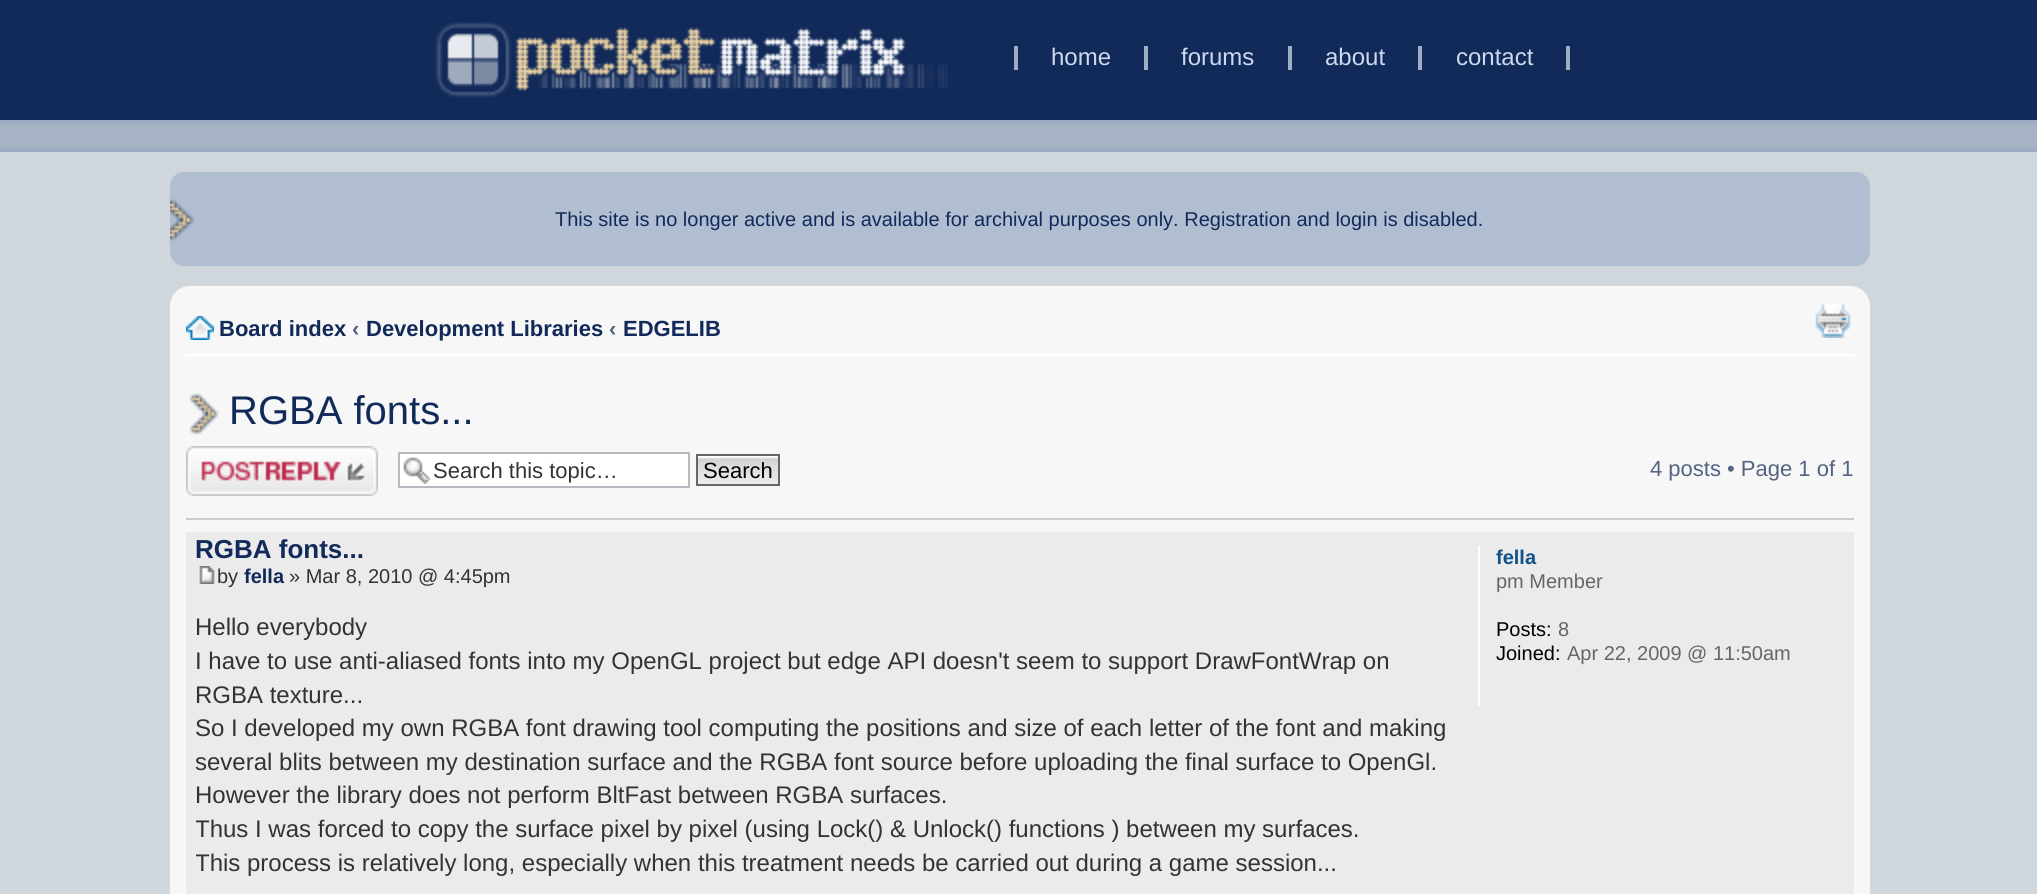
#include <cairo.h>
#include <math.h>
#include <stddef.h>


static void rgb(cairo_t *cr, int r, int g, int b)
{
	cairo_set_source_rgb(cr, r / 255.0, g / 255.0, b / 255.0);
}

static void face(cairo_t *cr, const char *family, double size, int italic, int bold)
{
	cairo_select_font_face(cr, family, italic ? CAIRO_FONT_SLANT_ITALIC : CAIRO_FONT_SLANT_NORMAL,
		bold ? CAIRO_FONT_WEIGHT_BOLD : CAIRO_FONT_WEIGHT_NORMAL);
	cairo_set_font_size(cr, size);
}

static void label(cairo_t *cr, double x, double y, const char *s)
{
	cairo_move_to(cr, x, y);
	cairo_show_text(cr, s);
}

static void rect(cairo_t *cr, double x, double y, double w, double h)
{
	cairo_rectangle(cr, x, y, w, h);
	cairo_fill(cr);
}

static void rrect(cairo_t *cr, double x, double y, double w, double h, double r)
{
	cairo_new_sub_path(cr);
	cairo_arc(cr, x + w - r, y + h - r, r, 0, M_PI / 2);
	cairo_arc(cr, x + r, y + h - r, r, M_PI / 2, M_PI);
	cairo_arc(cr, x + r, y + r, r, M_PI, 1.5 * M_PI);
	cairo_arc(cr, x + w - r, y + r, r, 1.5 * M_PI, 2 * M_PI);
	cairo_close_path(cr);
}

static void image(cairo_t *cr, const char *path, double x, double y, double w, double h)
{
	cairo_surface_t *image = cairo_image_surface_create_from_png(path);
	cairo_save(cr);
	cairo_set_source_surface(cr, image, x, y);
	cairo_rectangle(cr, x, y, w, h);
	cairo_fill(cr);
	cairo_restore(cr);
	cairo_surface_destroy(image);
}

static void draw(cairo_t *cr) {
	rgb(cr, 207, 215, 221);
	cairo_paint(cr);
	rgb(cr, 18, 42, 90);
	rect(cr, 0, 0, 2037, 120);
	image(cr, "image0.png", 435, 22, 513, 76);
	face(cr, "Liberation Sans", 24, 0, 0);
	rgb(cr, 205, 217, 236);
	label(cr, 1051, 65, "home");
	rgb(cr, 159, 173, 196);
	rect(cr, 1014, 46, 4, 24);
	rgb(cr, 205, 217, 236);
	label(cr, 1181, 65, "forums");
	rgb(cr, 159, 173, 196);
	rect(cr, 1144, 46, 4, 24);
	rect(cr, 1288, 46, 4, 24);
	rgb(cr, 205, 217, 236);
	label(cr, 1325, 65, "about");
	rgb(cr, 159, 173, 196);
	rect(cr, 1418, 46, 4, 24);
	rgb(cr, 205, 217, 236);
	label(cr, 1456, 65, "contact");
	rgb(cr, 159, 173, 196);
	rect(cr, 1566, 46, 4, 24);
	rgb(cr, 166, 179, 197);
	rect(cr, 0, 124, 2037, 24);
	rgb(cr, 159, 173, 196);
	rect(cr, 0, 120, 2037, 4);
	rect(cr, 0, 148, 2037, 4);
	rgb(cr, 177, 190, 210);
	rrect(cr, 170, 172, 1700, 94, 14);
	cairo_fill(cr);
	image(cr, "image1.png", 170, 199, 25, 42);
	face(cr, "Liberation Sans", 20, 0, 0);
	rgb(cr, 18, 42, 90);
	label(cr, 555, 226, "This site is no longer active and is available for archival purposes only. Registration and login is disabled.");
	rgb(cr, 247, 247, 247);
	rrect(cr, 170, 286, 1700, 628, 20);
	cairo_fill(cr);
	rgb(cr, 255, 255, 255);
	rect(cr, 186, 354, 1668, 2);
	image(cr, "image2.png", 186, 316, 28, 24);
	face(cr, "Liberation Sans", 22, 0, 1);
	rgb(cr, 18, 42, 90);
	label(cr, 219, 336, "Board index");
	rgb(cr, 83, 100, 130);
	label(cr, 352, 336, "‹");
	rgb(cr, 18, 42, 90);
	label(cr, 366, 336, "Development Libraries");
	rgb(cr, 83, 100, 130);
	label(cr, 609, 336, "‹");
	rgb(cr, 18, 42, 90);
	label(cr, 623, 336, "EDGELIB");
	image(cr, "image3.png", 1815, 303, 36, 35);
	image(cr, "image4.png", 189, 393, 30, 42);
	face(cr, "Liberation Sans", 40, 0, 0);
	label(cr, 229, 424, "RGBA fonts...");
	image(cr, "image5.png", 186, 446, 192, 50);
	rgb(cr, 255, 255, 255);
	rect(cr, 400, 454, 288, 32);
	image(cr, "image6.png", 403, 457, 28, 27);
	cairo_rectangle(cr, 399, 453, 290, 34);
	rgb(cr, 180, 186, 192);
	cairo_stroke(cr);
	face(cr, "Liberation Sans", 22, 0, 0);
	rgb(cr, 51, 51, 51);
	label(cr, 433, 478, "Search this topic…");
	image(cr, "image7.png", 698, 456, 80, 28);
	cairo_rectangle(cr, 697, 455, 82, 30);
	rgb(cr, 102, 102, 102);
	cairo_stroke(cr);
	rgb(cr, 0, 0, 0);
	label(cr, 703, 478, "Search");
	rgb(cr, 83, 100, 130);
	label(cr, 1650, 476, "4 posts • Page 1 of 1");
	rgb(cr, 204, 204, 204);
	rect(cr, 186, 518, 1668, 2);
	rgb(cr, 235, 235, 235);
	rect(cr, 186, 532, 1668, 362);
	face(cr, "Liberation Sans", 26, 0, 1);
	rgb(cr, 18, 42, 90);
	label(cr, 195, 558, "RGBA fonts...");
	image(cr, "image8.png", 199, 566, 16, 18);
	face(cr, "Liberation Sans", 20, 0, 0);
	rgb(cr, 51, 51, 51);
	label(cr, 217, 583, "by");
	face(cr, "Liberation Sans", 20, 0, 1);
	rgb(cr, 18, 42, 90);
	label(cr, 244, 583, "fella");
	face(cr, "Liberation Sans", 20, 0, 0);
	rgb(cr, 51, 51, 51);
	label(cr, 289, 583, "» Mar 8, 2010 @ 4:45pm");
	face(cr, "Liberation Sans", 24, 0, 0);
	label(cr, 195, 635, "Hello everybody");
	label(cr, 195, 669, "I have to use anti-aliased fonts into my OpenGL project but edge API doesn't seem to support DrawFontWrap on");
	label(cr, 195, 703, "RGBA texture...");
	label(cr, 195, 736, "So I developed my own RGBA font drawing tool computing the positions and size of each letter of the font and making");
	label(cr, 195, 770, "several blits between my destination surface and the RGBA font source before uploading the final surface to OpenGl.");
	label(cr, 195, 803, "However the library does not perform BltFast between RGBA surfaces.");
	cairo_save(cr);
	cairo_rectangle(cr, 196, 612, 1252, 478);
	cairo_clip(cr);
	label(cr, 195, 837, "Thus I was forced to copy the surface pixel by pixel (using Lock() & Unlock() functions ) between my surfaces.");
	label(cr, 195, 871, "This process is relatively long, especially when this treatment needs be carried out during a game session...");
	cairo_restore(cr);
	rgb(cr, 255, 255, 255);
	rect(cr, 1478, 546, 2, 160);
	face(cr, "Liberation Sans", 20, 0, 1);
	rgb(cr, 16, 82, 137);
	label(cr, 1496, 564, "fella");
	face(cr, "Liberation Sans", 20, 0, 0);
	rgb(cr, 102, 102, 102);
	label(cr, 1496, 588, "pm Member");
	rgb(cr, 0, 0, 0);
	label(cr, 1496, 636, "Posts:");
	rgb(cr, 102, 102, 102);
	label(cr, 1558, 636, "8");
	rgb(cr, 0, 0, 0);
	label(cr, 1496, 660, "Joined:");
	rgb(cr, 102, 102, 102);
	label(cr, 1567, 660, "Apr 22, 2009 @ 11:50am");
}

int main(void) {
	cairo_surface_t *surface = cairo_image_surface_create(CAIRO_FORMAT_RGB24, 2037, 894);
	cairo_t *cr = cairo_create(surface);
	cairo_font_options_t *options = cairo_font_options_create();
	cairo_font_options_set_hint_metrics(options, CAIRO_HINT_METRICS_OFF);
	cairo_font_options_set_hint_style(options, CAIRO_HINT_STYLE_NONE);
	cairo_set_font_options(cr, options);
	cairo_set_miter_limit(cr, 4);
	draw(cr);
	cairo_surface_write_to_png(surface, "render.png");
	cairo_font_options_destroy(options);
	cairo_destroy(cr);
	cairo_surface_destroy(surface);
	return 0;
}
